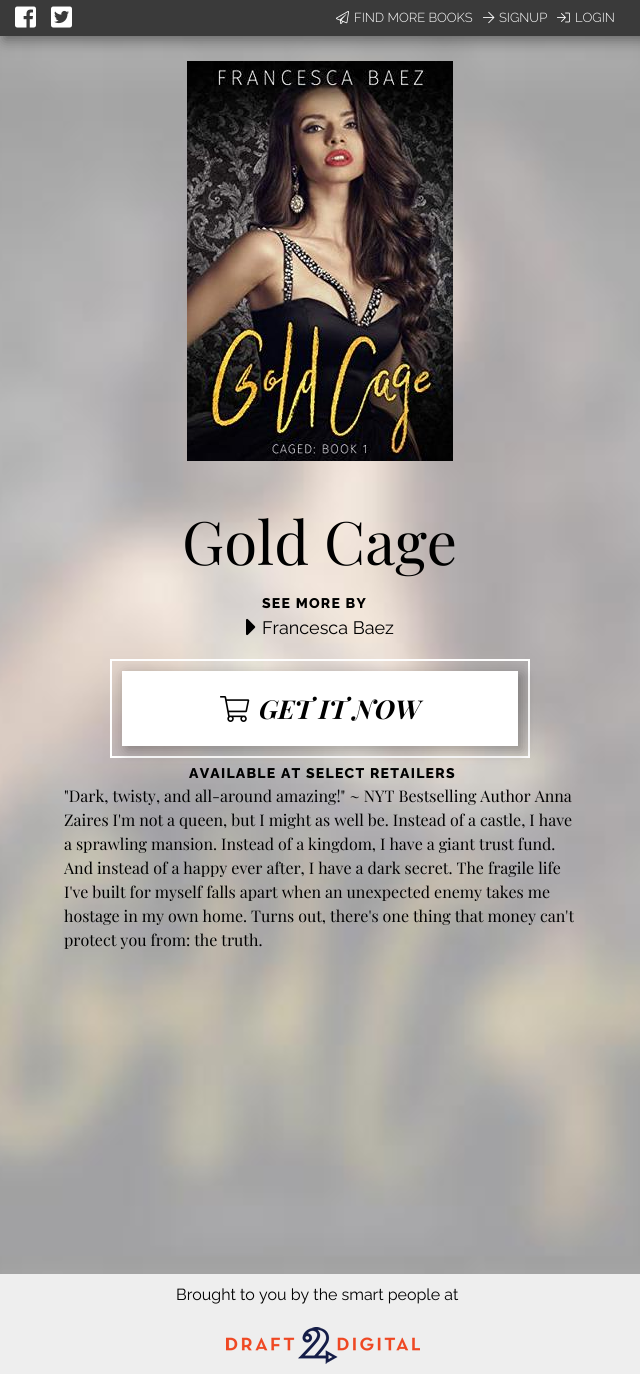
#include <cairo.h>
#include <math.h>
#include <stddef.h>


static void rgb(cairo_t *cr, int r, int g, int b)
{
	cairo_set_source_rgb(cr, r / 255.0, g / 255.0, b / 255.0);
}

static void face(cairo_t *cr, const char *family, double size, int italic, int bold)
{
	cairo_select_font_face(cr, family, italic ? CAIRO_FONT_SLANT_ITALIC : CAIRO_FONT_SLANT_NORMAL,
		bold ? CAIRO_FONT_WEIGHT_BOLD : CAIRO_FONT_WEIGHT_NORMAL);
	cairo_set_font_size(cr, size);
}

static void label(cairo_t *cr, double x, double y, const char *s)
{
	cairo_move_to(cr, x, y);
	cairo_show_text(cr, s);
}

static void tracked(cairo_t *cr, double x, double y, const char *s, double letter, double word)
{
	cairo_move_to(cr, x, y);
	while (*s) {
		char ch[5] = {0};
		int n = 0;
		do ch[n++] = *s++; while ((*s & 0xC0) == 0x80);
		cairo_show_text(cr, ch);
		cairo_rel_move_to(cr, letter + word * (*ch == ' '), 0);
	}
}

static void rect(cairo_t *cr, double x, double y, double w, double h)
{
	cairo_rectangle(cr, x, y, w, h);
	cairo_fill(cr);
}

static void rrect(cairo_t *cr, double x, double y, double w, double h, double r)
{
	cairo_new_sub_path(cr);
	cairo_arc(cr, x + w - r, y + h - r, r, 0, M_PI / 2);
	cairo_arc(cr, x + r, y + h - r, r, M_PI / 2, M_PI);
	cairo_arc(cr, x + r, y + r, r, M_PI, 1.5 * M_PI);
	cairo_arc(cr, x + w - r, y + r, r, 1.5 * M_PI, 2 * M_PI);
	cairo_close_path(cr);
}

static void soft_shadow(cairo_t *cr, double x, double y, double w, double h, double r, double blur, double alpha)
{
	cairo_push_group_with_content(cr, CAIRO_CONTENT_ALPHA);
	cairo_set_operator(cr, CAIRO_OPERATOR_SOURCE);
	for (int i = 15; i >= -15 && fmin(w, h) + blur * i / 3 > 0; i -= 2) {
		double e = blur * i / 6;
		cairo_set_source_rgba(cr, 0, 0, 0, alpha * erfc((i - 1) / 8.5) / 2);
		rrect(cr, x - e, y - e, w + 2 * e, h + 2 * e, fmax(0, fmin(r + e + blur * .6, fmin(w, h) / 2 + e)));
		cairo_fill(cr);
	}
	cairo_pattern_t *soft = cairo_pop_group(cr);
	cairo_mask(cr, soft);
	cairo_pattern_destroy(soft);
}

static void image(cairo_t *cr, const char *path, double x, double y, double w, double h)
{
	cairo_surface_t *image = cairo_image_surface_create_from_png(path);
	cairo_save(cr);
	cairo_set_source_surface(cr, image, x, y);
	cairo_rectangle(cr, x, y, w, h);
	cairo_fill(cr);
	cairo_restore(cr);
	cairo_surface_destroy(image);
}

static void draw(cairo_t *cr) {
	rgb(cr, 255, 255, 255);
	cairo_paint(cr);
	image(cr, "image0.png", 0, 36, 640, 1238);
	image(cr, "image6.png", 187, 61, 266, 400);
	rgb(cr, 0, 0, 0);
	soft_shadow(cr, 4, 4, 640, 36, 0, 7, 0.4);
	rgb(cr, 58, 58, 58);
	rect(cr, 0, 0, 640, 36);
	image(cr, "image1.png", 15, 6, 21, 22);
	image(cr, "image2.png", 51, 6, 21, 22);
	image(cr, "image3.png", 336, 11, 13, 13);
	face(cr, "Raleway Light", 13, 0, 0);
	rgb(cr, 255, 255, 255);
	label(cr, 354, 22, "FIND MORE BOOKS");
	image(cr, "image4.png", 483, 11, 12, 13);
	label(cr, 499, 22, "SIGNUP");
	image(cr, "image5.png", 557, 12, 13, 11);
	label(cr, 575, 22, "LOGIN");
	face(cr, "Playfair Display", 60, 0, 0);
	rgb(cr, 0, 0, 0);
	label(cr, 182, 565, "Gold Cage");
	image(cr, "image7.png", 246, 618, 10, 18);
	face(cr, "Raleway ExtraBold", 14, 0, 0);
	tracked(cr, 262, 608, "SEE MORE BY", 1.25, 0);
	face(cr, "Raleway", 18, 0, 0);
	label(cr, 262, 634, "Francesca Baez");
	cairo_rectangle(cr, 111, 660, 418, 97);
	rgb(cr, 255, 255, 255);
	cairo_stroke(cr);
	rgb(cr, 0, 0, 0);
	soft_shadow(cr, 126, 675, 396, 75, 0, 7, 0.3);
	rgb(cr, 255, 255, 255);
	rect(cr, 122, 671, 396, 75);
	image(cr, "image8.png", 220, 696, 30, 26);
	face(cr, "Playfair Display", 26, 1, 1);
	rgb(cr, 0, 0, 0);
	label(cr, 259, 719, "GET IT NOW");
	face(cr, "Raleway ExtraBold", 14, 0, 0);
	tracked(cr, 189, 778, "AVAILABLE AT SELECT RETAILERS", 1.25, 0);
	face(cr, "Playfair Display", 16, 0, 0);
	label(cr, 64, 802, "\"Dark, twisty, and all-around amazing!\" ~ NYT Bestselling Author Anna");
	label(cr, 64, 826, "Zaires I'm not a queen, but I might as well be. Instead of a castle, I have");
	label(cr, 64, 850, "a sprawling mansion. Instead of a kingdom, I have a giant trust fund.");
	label(cr, 64, 874, "And instead of a happy ever after, I have a dark secret. The fragile life");
	label(cr, 64, 898, "I've built for myself falls apart when an unexpected enemy takes me");
	label(cr, 64, 922, "hostage in my own home. Turns out, there's one thing that money can't");
	label(cr, 64, 946, "protect you from: the truth.");
	rgb(cr, 238, 238, 238);
	rect(cr, 0, 1274, 640, 100);
	face(cr, "Raleway", 16, 0, 0);
	rgb(cr, 0, 0, 0);
	label(cr, 176, 1300, "Brought to you by the smart people at");
	image(cr, "image9.png", 226, 1327, 194, 37);
}

int main(void) {
	cairo_surface_t *surface = cairo_image_surface_create(CAIRO_FORMAT_RGB24, 640, 1374);
	cairo_t *cr = cairo_create(surface);
	cairo_font_options_t *options = cairo_font_options_create();
	cairo_font_options_set_hint_metrics(options, CAIRO_HINT_METRICS_OFF);
	cairo_font_options_set_hint_style(options, CAIRO_HINT_STYLE_NONE);
	cairo_set_font_options(cr, options);
	cairo_set_miter_limit(cr, 4);
	draw(cr);
	cairo_surface_write_to_png(surface, "render.png");
	cairo_font_options_destroy(options);
	cairo_destroy(cr);
	cairo_surface_destroy(surface);
	return 0;
}
